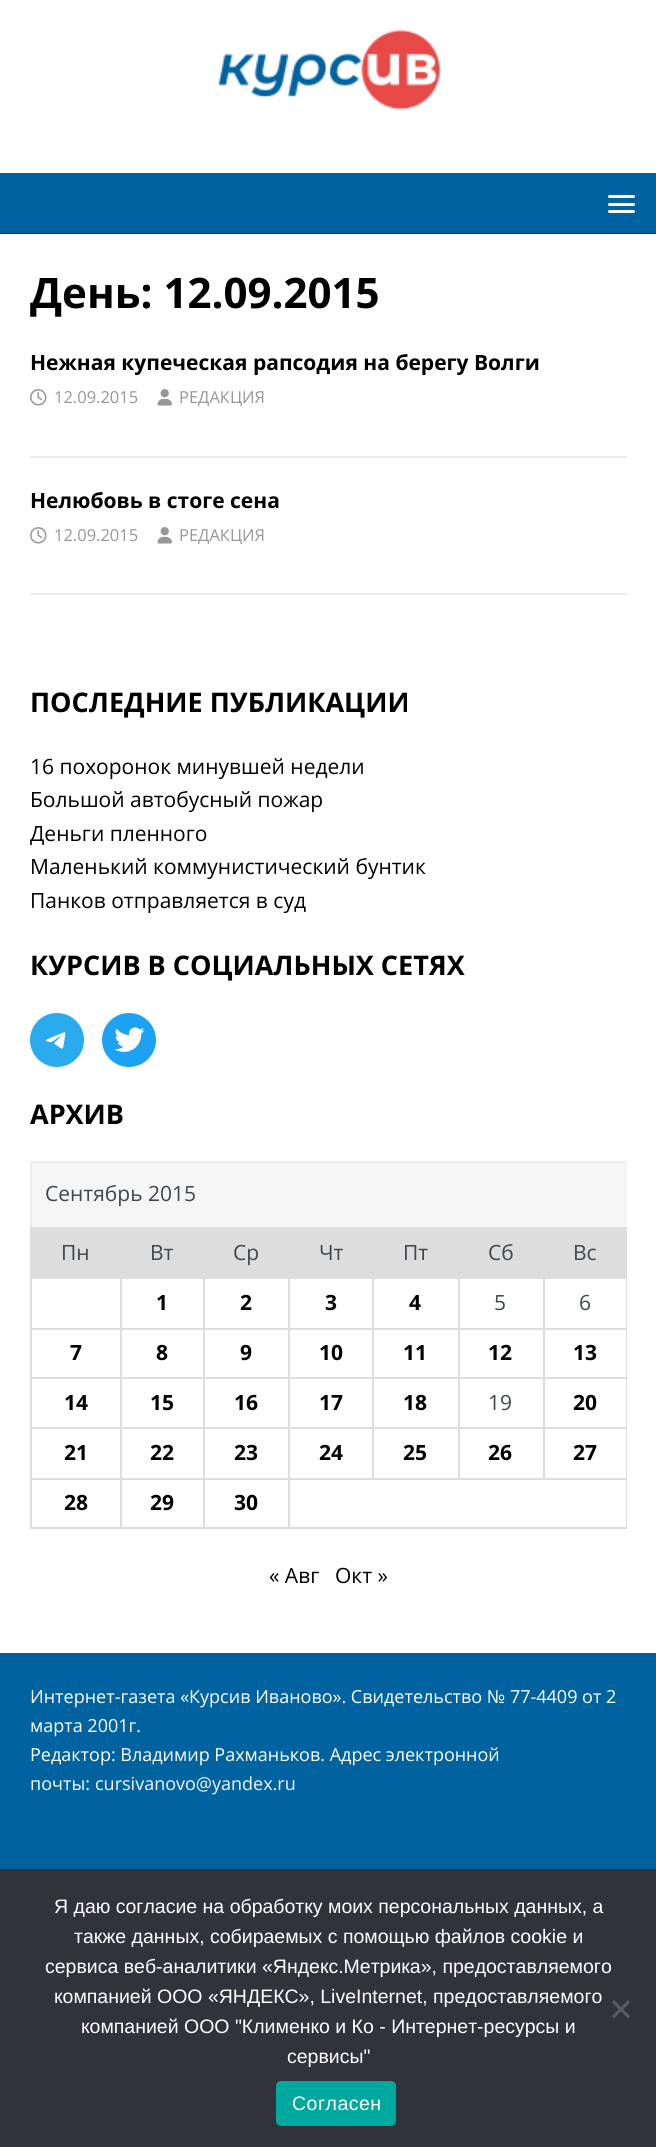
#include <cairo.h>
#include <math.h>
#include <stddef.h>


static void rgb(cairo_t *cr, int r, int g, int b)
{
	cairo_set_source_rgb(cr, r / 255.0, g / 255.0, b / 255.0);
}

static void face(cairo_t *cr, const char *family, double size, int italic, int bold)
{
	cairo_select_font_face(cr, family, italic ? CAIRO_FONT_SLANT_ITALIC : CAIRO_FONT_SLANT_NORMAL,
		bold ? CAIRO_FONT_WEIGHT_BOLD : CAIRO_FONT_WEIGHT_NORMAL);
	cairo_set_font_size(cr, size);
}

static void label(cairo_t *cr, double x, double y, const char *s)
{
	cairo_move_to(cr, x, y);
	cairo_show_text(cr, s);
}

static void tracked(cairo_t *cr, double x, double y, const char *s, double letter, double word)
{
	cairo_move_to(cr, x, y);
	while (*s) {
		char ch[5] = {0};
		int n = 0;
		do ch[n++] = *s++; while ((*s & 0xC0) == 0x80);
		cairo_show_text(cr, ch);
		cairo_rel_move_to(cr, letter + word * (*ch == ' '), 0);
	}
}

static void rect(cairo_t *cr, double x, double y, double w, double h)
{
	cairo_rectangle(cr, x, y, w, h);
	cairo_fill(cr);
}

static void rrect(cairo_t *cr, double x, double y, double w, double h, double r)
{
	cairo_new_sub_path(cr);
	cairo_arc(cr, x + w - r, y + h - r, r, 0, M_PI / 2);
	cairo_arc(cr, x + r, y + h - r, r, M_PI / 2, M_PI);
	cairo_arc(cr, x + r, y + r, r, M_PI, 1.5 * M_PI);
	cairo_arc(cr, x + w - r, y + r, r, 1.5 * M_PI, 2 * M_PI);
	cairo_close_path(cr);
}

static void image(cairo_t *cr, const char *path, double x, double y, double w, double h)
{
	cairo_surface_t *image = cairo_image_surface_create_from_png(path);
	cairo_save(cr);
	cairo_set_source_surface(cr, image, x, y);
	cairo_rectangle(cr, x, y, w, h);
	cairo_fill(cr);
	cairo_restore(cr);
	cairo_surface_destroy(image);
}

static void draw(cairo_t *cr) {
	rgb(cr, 255, 255, 255);
	cairo_paint(cr);
	image(cr, "image0.png", 218, 30, 223, 80);
	rgb(cr, 0, 99, 159);
	rect(cr, 0, 173, 656, 60);
	rgb(cr, 42, 42, 42);
	rect(cr, 0, 233, 656, 1);
	rgb(cr, 255, 255, 255);
	rrect(cr, 608, 195, 27, 3, 1.5);
	cairo_fill(cr);
	rrect(cr, 608, 203, 27, 3, 1.5);
	cairo_fill(cr);
	rrect(cr, 608, 210, 27, 3, 1.5);
	cairo_fill(cr);
	face(cr, "Open Sans", 42, 0, 1);
	rgb(cr, 0, 0, 0);
	label(cr, 30, 308, "День: 12.09.2015");
	rgb(cr, 235, 235, 235);
	rect(cr, 30, 456, 597, 2);
	face(cr, "Open Sans", 21, 0, 1);
	rgb(cr, 0, 0, 0);
	label(cr, 30, 370, "Нежная купеческая рапсодия на берегу Волги");
	image(cr, "image1.png", 30, 389, 17, 17);
	face(cr, "Open Sans", 16.5, 0, 0);
	rgb(cr, 151, 151, 151);
	label(cr, 54, 403, "12.09.2015");
	image(cr, "image2.png", 157, 389, 15, 17);
	label(cr, 179, 403, "РЕДАКЦИЯ");
	rgb(cr, 235, 235, 235);
	rect(cr, 30, 593, 597, 2);
	face(cr, "Open Sans", 21, 0, 1);
	rgb(cr, 0, 0, 0);
	label(cr, 30, 508, "Нелюбовь в стоге сена");
	image(cr, "image1.png", 30, 527, 17, 17);
	face(cr, "Open Sans", 16.5, 0, 0);
	rgb(cr, 151, 151, 151);
	label(cr, 54, 541, "12.09.2015");
	image(cr, "image2.png", 157, 527, 15, 17);
	label(cr, 179, 541, "РЕДАКЦИЯ");
	face(cr, "Open Sans", 27, 0, 1);
	rgb(cr, 0, 0, 0);
	label(cr, 30, 712, "ПОСЛЕДНИЕ ПУБЛИКАЦИИ");
	face(cr, "Open Sans", 21, 0, 0);
	label(cr, 30, 774, "16 похоронок минувшей недели");
	label(cr, 30, 807, "Большой автобусный пожар");
	label(cr, 30, 841, "Деньги пленного");
	label(cr, 30, 874, "Маленький коммунистический бунтик");
	label(cr, 30, 908, "Панков отправляется в суд");
	face(cr, "Open Sans", 27, 0, 1);
	label(cr, 30, 975, "КУРСИВ В СОЦИАЛЬНЫХ СЕТЯХ");
	rgb(cr, 42, 171, 238);
	cairo_new_path(cr);
	cairo_arc(cr, 57, 1040, 27, 0, 2 * M_PI);
	cairo_fill(cr);
	image(cr, "image3.png", 45, 1032, 21, 17);
	rgb(cr, 29, 161, 242);
	cairo_arc(cr, 129, 1040, 27, 0, 2 * M_PI);
	cairo_fill(cr);
	image(cr, "image4.png", 114, 1027, 31, 25);
	rgb(cr, 0, 0, 0);
	label(cr, 30, 1124, "АРХИВ");
	rgb(cr, 235, 235, 235);
	rect(cr, 30, 1161, 597, 2);
	rect(cr, 30, 1161, 2, 66);
	rgb(cr, 245, 245, 245);
	rect(cr, 32, 1163, 595, 63);
	face(cr, "Open Sans", 21, 0, 0);
	rgb(cr, 64, 70, 77);
	label(cr, 45, 1201, "Сентябрь 2015");
	rgb(cr, 221, 221, 221);
	rect(cr, 32, 1229, 88, 48);
	rect(cr, 120, 1227, 507, 50);
	rect(cr, 30, 1227, 92, 2);
	rect(cr, 543, 1277, 84, 2);
	rect(cr, 543, 1328, 84, 2);
	rect(cr, 543, 1377, 84, 2);
	rect(cr, 543, 1427, 84, 2);
	rect(cr, 288, 1478, 339, 2);
	rect(cr, 543, 1427, 2, 52);
	rect(cr, 458, 1427, 87, 2);
	rect(cr, 543, 1377, 2, 51);
	rect(cr, 458, 1377, 87, 2);
	rect(cr, 543, 1328, 2, 51);
	rect(cr, 458, 1328, 87, 2);
	rect(cr, 543, 1277, 2, 52);
	rect(cr, 458, 1277, 87, 2);
	rect(cr, 458, 1427, 2, 52);
	rect(cr, 372, 1427, 87, 2);
	rect(cr, 458, 1377, 2, 51);
	rect(cr, 372, 1377, 87, 2);
	rect(cr, 458, 1328, 2, 51);
	rect(cr, 372, 1328, 87, 2);
	rect(cr, 458, 1277, 2, 52);
	rect(cr, 372, 1277, 87, 2);
	rect(cr, 372, 1427, 2, 52);
	rect(cr, 288, 1427, 86, 2);
	rect(cr, 372, 1377, 2, 51);
	rect(cr, 288, 1377, 86, 2);
	rect(cr, 372, 1328, 2, 51);
	rect(cr, 288, 1328, 86, 2);
	rect(cr, 372, 1277, 2, 52);
	rect(cr, 288, 1277, 86, 2);
	rect(cr, 626, 1478, 1, 51);
	rect(cr, 288, 1527, 339, 2);
	rect(cr, 288, 1478, 2, 51);
	rect(cr, 203, 1478, 87, 2);
	rect(cr, 288, 1427, 2, 52);
	rect(cr, 203, 1427, 87, 2);
	rect(cr, 288, 1377, 2, 51);
	rect(cr, 203, 1377, 87, 2);
	rect(cr, 288, 1328, 2, 51);
	rect(cr, 203, 1328, 87, 2);
	rect(cr, 288, 1277, 2, 52);
	rect(cr, 203, 1277, 87, 2);
	rect(cr, 203, 1527, 87, 2);
	rect(cr, 203, 1478, 2, 51);
	rect(cr, 120, 1478, 84, 2);
	rect(cr, 203, 1427, 2, 52);
	rect(cr, 120, 1427, 84, 2);
	rect(cr, 203, 1377, 2, 51);
	rect(cr, 120, 1377, 84, 2);
	rect(cr, 203, 1328, 2, 51);
	rect(cr, 120, 1328, 84, 2);
	rect(cr, 203, 1277, 2, 52);
	rect(cr, 120, 1277, 84, 2);
	rect(cr, 120, 1527, 84, 2);
	rect(cr, 120, 1478, 2, 51);
	rect(cr, 30, 1478, 92, 2);
	rect(cr, 120, 1427, 2, 52);
	rect(cr, 30, 1427, 92, 2);
	rect(cr, 120, 1377, 2, 51);
	rect(cr, 30, 1377, 92, 2);
	rect(cr, 120, 1328, 2, 51);
	rect(cr, 30, 1328, 92, 2);
	rect(cr, 120, 1277, 2, 52);
	rect(cr, 30, 1277, 92, 2);
	rect(cr, 30, 1527, 92, 2);
	rect(cr, 30, 1478, 2, 51);
	rect(cr, 30, 1427, 2, 52);
	rect(cr, 30, 1377, 2, 51);
	rect(cr, 30, 1328, 2, 51);
	rect(cr, 30, 1277, 2, 52);
	rect(cr, 30, 1227, 2, 51);
	rgb(cr, 64, 70, 77);
	label(cr, 61, 1260, "Пн");
	label(cr, 150, 1260, "Вт");
	label(cr, 233, 1260, "Ср");
	label(cr, 319, 1260, "Чт");
	label(cr, 403, 1260, "Пт");
	label(cr, 488, 1260, "Сб");
	label(cr, 573, 1260, "Вс");
	face(cr, "Open Sans", 21, 0, 1);
	rgb(cr, 0, 0, 0);
	label(cr, 156, 1310, "1");
	label(cr, 240, 1310, "2");
	label(cr, 325, 1310, "3");
	label(cr, 409, 1310, "4");
	face(cr, "Open Sans", 21, 0, 0);
	rgb(cr, 64, 70, 77);
	label(cr, 494, 1310, "5");
	rgb(cr, 221, 221, 221);
	rect(cr, 626, 1427, 1, 52);
	rect(cr, 626, 1377, 1, 51);
	rect(cr, 626, 1328, 1, 51);
	rect(cr, 626, 1277, 1, 52);
	rgb(cr, 64, 70, 77);
	label(cr, 579, 1310, "6");
	face(cr, "Open Sans", 21, 0, 1);
	rgb(cr, 0, 0, 0);
	label(cr, 70, 1360, "7");
	label(cr, 156, 1360, "8");
	label(cr, 240, 1360, "9");
	label(cr, 319, 1360, "10");
	label(cr, 403, 1360, "11");
	label(cr, 488, 1360, "12");
	label(cr, 573, 1360, "13");
	label(cr, 64, 1410, "14");
	label(cr, 150, 1410, "15");
	label(cr, 234, 1410, "16");
	label(cr, 319, 1410, "17");
	label(cr, 403, 1410, "18");
	face(cr, "Open Sans", 21, 0, 0);
	rgb(cr, 64, 70, 77);
	label(cr, 488, 1410, "19");
	face(cr, "Open Sans", 21, 0, 1);
	rgb(cr, 0, 0, 0);
	label(cr, 573, 1410, "20");
	label(cr, 64, 1460, "21");
	label(cr, 150, 1460, "22");
	label(cr, 234, 1460, "23");
	label(cr, 319, 1460, "24");
	label(cr, 403, 1460, "25");
	label(cr, 488, 1460, "26");
	label(cr, 573, 1460, "27");
	label(cr, 64, 1510, "28");
	label(cr, 150, 1510, "29");
	label(cr, 234, 1510, "30");
	face(cr, "Open Sans", 21, 0, 0);
	label(cr, 269, 1583, "« Авг");
	label(cr, 335, 1583, "Окт »");
	rgb(cr, 0, 99, 159);
	rect(cr, 0, 1653, 656, 216);
	face(cr, "Open Sans", 18, 0, 0);
	rgb(cr, 255, 255, 255);
	label(cr, 30, 1703, "Интернет-газета «Курсив Иваново». Свидетельство № 77-4409 от 2");
	label(cr, 30, 1732, "марта 2001г.");
	label(cr, 30, 1761, "Редактор: Владимир Рахманьков. Адрес электронной");
	label(cr, 30, 1790, "почты:");
	rgb(cr, 247, 247, 247);
	label(cr, 95, 1790, "cursivanovo@yandex.ru");
	rgb(cr, 50, 50, 58);
	rect(cr, 0, 1869, 656, 278);
	face(cr, "Liberation Sans", 19.5, 0, 0);
	rgb(cr, 255, 255, 255);
	label(cr, 54, 1913, "Я даю согласие на обработку моих персональных данных, а");
	label(cr, 74, 1943, "также данных, собираемых с помощью файлов cookie и");
	label(cr, 45, 1973, "сервиса веб-аналитики «Яндекс.Метрика», предоставляемого");
	label(cr, 54, 2003, "компанией ООО «ЯНДЕКС», LiveInternet, предоставляемого");
	label(cr, 81, 2033, "компанией ООО \"Клименко и Ко - Интернет-ресурсы и");
	label(cr, 287, 2063, "сервисы\"");
	rgb(cr, 89, 89, 93);
	cairo_new_path(cr);
	cairo_move_to(cr, 628, 2000);
	cairo_line_to(cr, 630, 2002.5);
	cairo_line_to(cr, 614, 2018.5);
	cairo_line_to(cr, 612, 2016);
	cairo_close_path(cr);
	cairo_fill(cr);
	cairo_new_path(cr);
	cairo_move_to(cr, 612, 2002.5);
	cairo_line_to(cr, 614, 2000);
	cairo_line_to(cr, 630, 2016);
	cairo_line_to(cr, 628, 2018.5);
	cairo_close_path(cr);
	cairo_fill(cr);
	rgb(cr, 0, 169, 157);
	rrect(cr, 276, 2081, 120, 45, 5);
	cairo_fill(cr);
	rgb(cr, 255, 255, 255);
	tracked(cr, 292, 2110, "Согласен", 0.5, 0);
}

int main(void) {
	cairo_surface_t *surface = cairo_image_surface_create(CAIRO_FORMAT_RGB24, 656, 2147);
	cairo_t *cr = cairo_create(surface);
	cairo_font_options_t *options = cairo_font_options_create();
	cairo_font_options_set_hint_metrics(options, CAIRO_HINT_METRICS_OFF);
	cairo_font_options_set_hint_style(options, CAIRO_HINT_STYLE_NONE);
	cairo_set_font_options(cr, options);
	cairo_set_miter_limit(cr, 4);
	draw(cr);
	cairo_surface_write_to_png(surface, "render.png");
	cairo_font_options_destroy(options);
	cairo_destroy(cr);
	cairo_surface_destroy(surface);
	return 0;
}
